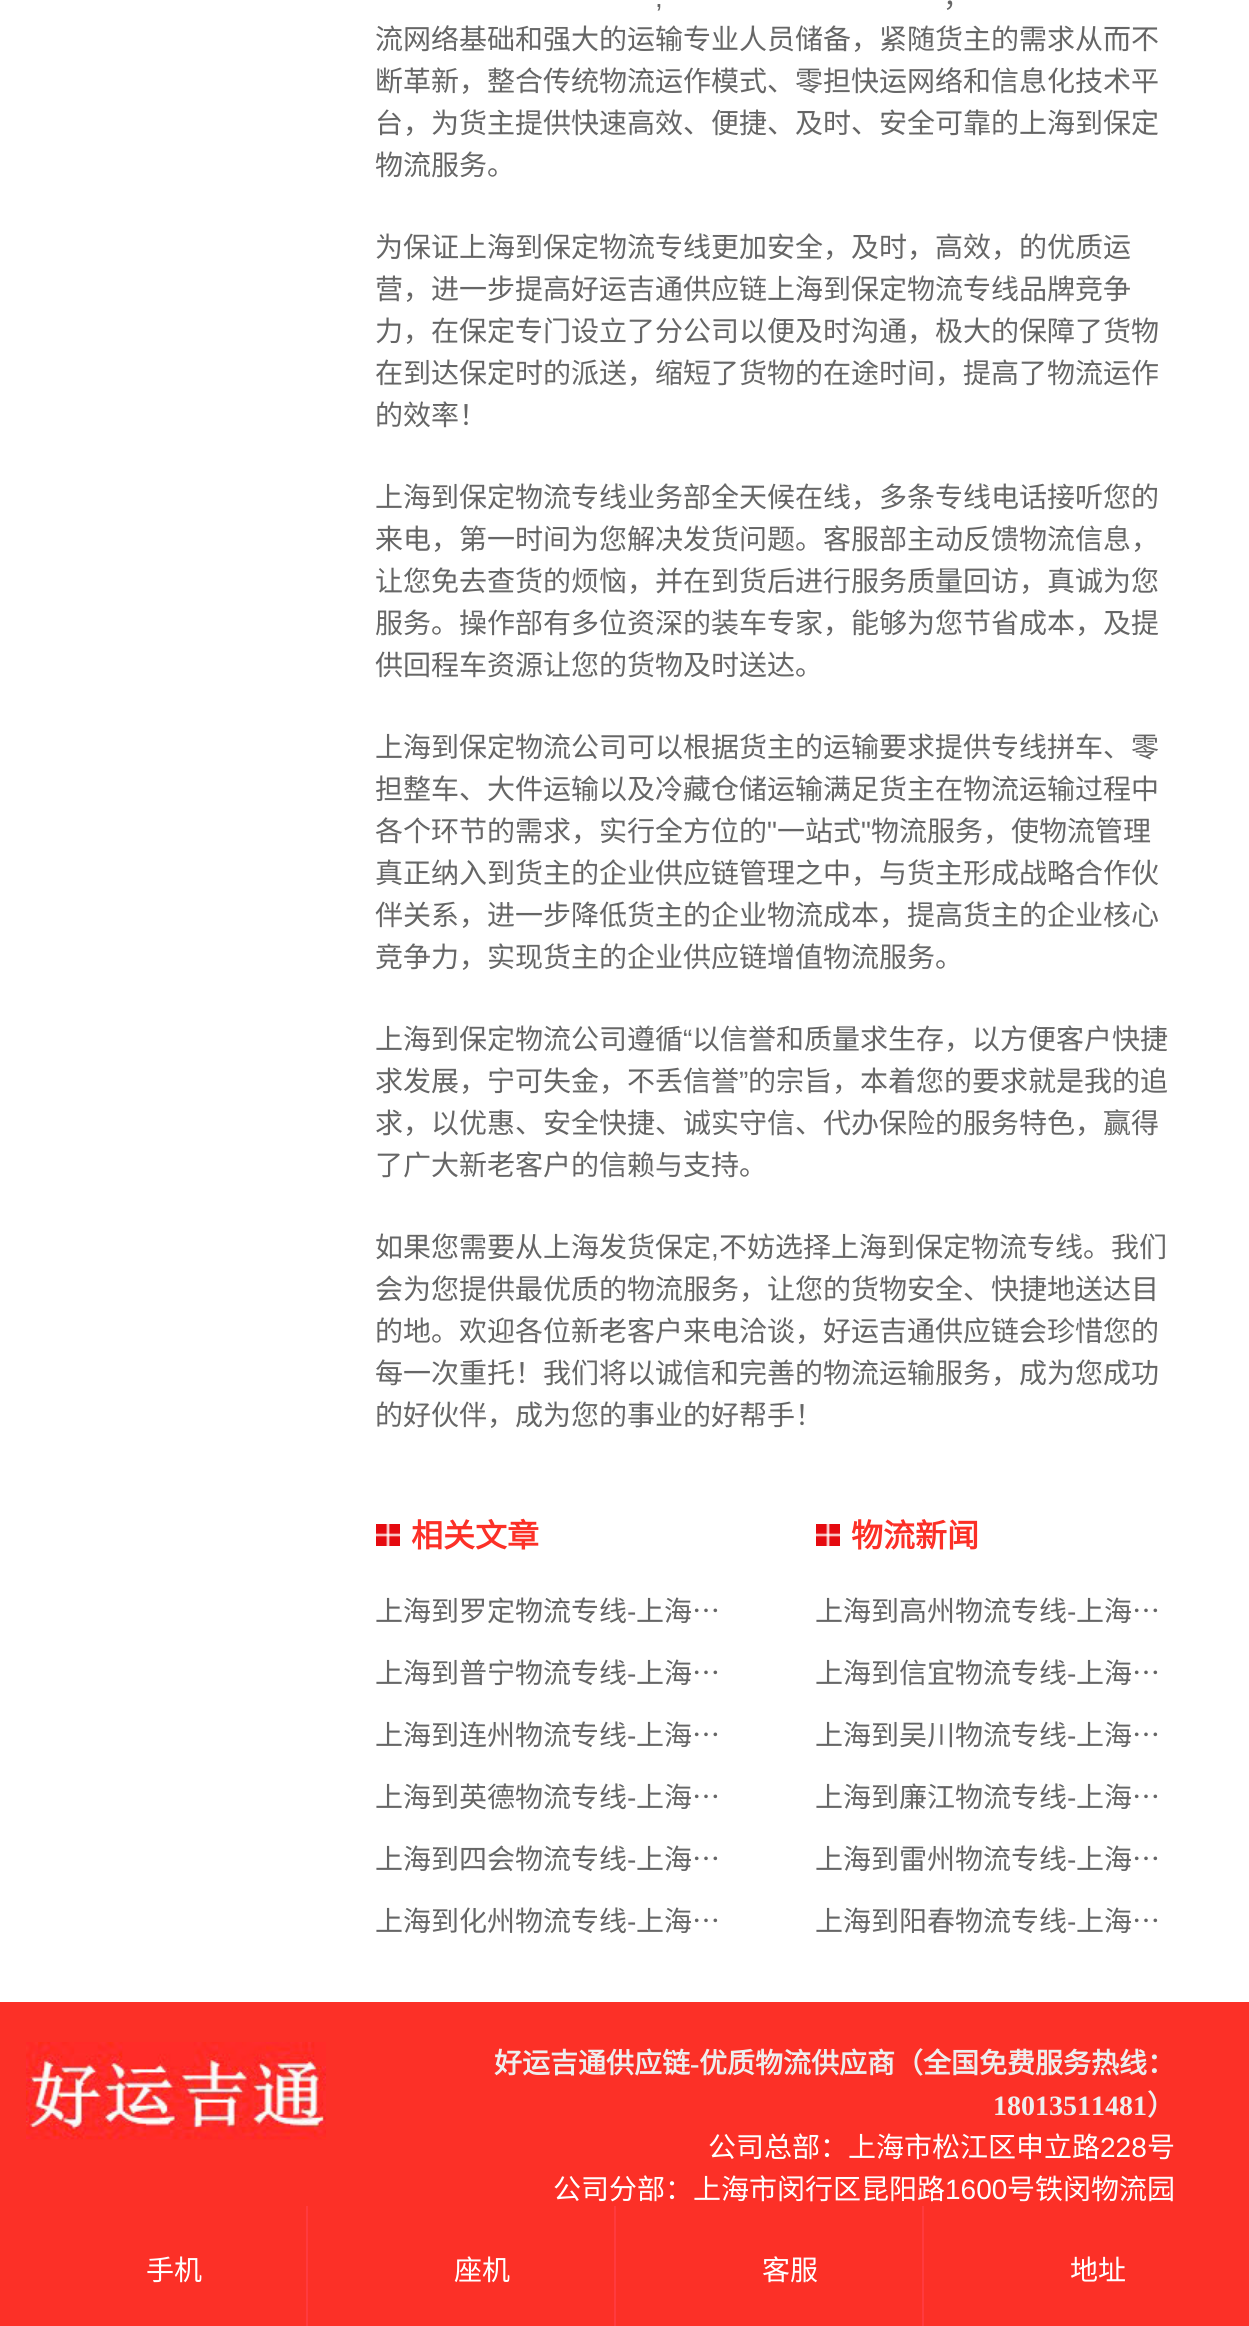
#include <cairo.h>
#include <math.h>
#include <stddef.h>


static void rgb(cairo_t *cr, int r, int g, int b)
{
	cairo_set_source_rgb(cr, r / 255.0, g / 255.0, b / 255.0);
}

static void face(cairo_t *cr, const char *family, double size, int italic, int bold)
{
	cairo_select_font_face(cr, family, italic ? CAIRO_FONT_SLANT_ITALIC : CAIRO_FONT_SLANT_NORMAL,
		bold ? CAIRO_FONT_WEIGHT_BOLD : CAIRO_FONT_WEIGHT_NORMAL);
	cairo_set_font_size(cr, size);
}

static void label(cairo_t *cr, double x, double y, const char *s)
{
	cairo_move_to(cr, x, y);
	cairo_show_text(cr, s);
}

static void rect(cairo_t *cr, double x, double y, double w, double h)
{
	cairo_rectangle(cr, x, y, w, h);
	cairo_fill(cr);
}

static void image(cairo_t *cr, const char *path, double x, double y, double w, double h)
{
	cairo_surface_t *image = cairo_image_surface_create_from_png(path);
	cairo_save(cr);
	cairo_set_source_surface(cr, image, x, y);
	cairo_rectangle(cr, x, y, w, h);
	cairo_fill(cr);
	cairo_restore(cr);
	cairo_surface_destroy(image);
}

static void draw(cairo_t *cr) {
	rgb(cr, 255, 255, 255);
	cairo_paint(cr);
	face(cr, "Liberation Sans", 28, 0, 0);
	rgb(cr, 102, 102, 102);
	label(cr, 655, 7, ",");
	face(cr, "Noto Sans CJK SC", 28, 0, 0);
	label(cr, 943, 7, "，");
	label(cr, 375, 49, "流网络基础和强大的运输专业人员储备，紧随货主的需求从而不");
	label(cr, 375, 91, "断革新，整合传统物流运作模式、零担快运网络和信息化技术平");
	label(cr, 375, 133, "台，为货主提供快速高效、便捷、及时、安全可靠的上海到保定");
	label(cr, 375, 175, "物流服务。");
	label(cr, 375, 257, "为保证上海到保定物流专线更加安全，及时，高效，的优质运");
	label(cr, 375, 299, "营，进一步提高好运吉通供应链上海到保定物流专线品牌竞争");
	label(cr, 375, 341, "力，在保定专门设立了分公司以便及时沟通，极大的保障了货物");
	label(cr, 375, 383, "在到达保定时的派送，缩短了货物的在途时间，提高了物流运作");
	label(cr, 375, 425, "的效率！");
	label(cr, 375, 507, "上海到保定物流专线业务部全天候在线，多条专线电话接听您的");
	label(cr, 375, 549, "来电，第一时间为您解决发货问题。客服部主动反馈物流信息，");
	label(cr, 375, 591, "让您免去查货的烦恼，并在到货后进行服务质量回访，真诚为您");
	label(cr, 375, 633, "服务。操作部有多位资深的装车专家，能够为您节省成本，及提");
	label(cr, 375, 675, "供回程车资源让您的货物及时送达。");
	label(cr, 375, 757, "上海到保定物流公司可以根据货主的运输要求提供专线拼车、零");
	label(cr, 375, 799, "担整车、大件运输以及冷藏仓储运输满足货主在物流运输过程中");
	label(cr, 375, 841, "各个环节的需求，实行全方位的");
	face(cr, "Liberation Sans", 28, 0, 0);
	label(cr, 767, 841, "\"");
	face(cr, "Noto Sans CJK SC", 28, 0, 0);
	label(cr, 777, 841, "一站式");
	face(cr, "Liberation Sans", 28, 0, 0);
	label(cr, 861, 841, "\"");
	face(cr, "Noto Sans CJK SC", 28, 0, 0);
	label(cr, 871, 841, "物流服务，使物流管理");
	label(cr, 375, 883, "真正纳入到货主的企业供应链管理之中，与货主形成战略合作伙");
	label(cr, 375, 925, "伴关系，进一步降低货主的企业物流成本，提高货主的企业核心");
	label(cr, 375, 967, "竞争力，实现货主的企业供应链增值物流服务。");
	label(cr, 375, 1049, "上海到保定物流公司遵循");
	face(cr, "Liberation Sans", 28, 0, 0);
	label(cr, 683, 1049, "“");
	face(cr, "Noto Sans CJK SC", 28, 0, 0);
	label(cr, 692, 1049, "以信誉和质量求生存，以方便客户快捷");
	label(cr, 375, 1091, "求发展，宁可失金，不丢信誉");
	face(cr, "Liberation Sans", 28, 0, 0);
	label(cr, 739, 1091, "”");
	face(cr, "Noto Sans CJK SC", 28, 0, 0);
	label(cr, 748, 1091, "的宗旨，本着您的要求就是我的追");
	label(cr, 375, 1133, "求，以优惠、安全快捷、诚实守信、代办保险的服务特色，赢得");
	label(cr, 375, 1175, "了广大新老客户的信赖与支持。");
	label(cr, 375, 1257, "如果您需要从上海发货保定");
	face(cr, "Liberation Sans", 28, 0, 0);
	label(cr, 711, 1257, ",");
	face(cr, "Noto Sans CJK SC", 28, 0, 0);
	label(cr, 719, 1257, "不妨选择上海到保定物流专线。我们");
	label(cr, 375, 1299, "会为您提供最优质的物流服务，让您的货物安全、快捷地送达目");
	label(cr, 375, 1341, "的地。欢迎各位新老客户来电洽谈，好运吉通供应链会珍惜您的");
	label(cr, 375, 1383, "每一次重托！我们将以诚信和完善的物流运输服务，成为您成功");
	label(cr, 375, 1425, "的好伙伴，成为您的事业的好帮手！");
	image(cr, "image0.png", 376, 1524, 24, 22);
	face(cr, "Noto Sans CJK SC", 32, 0, 1);
	rgb(cr, 252, 48, 39);
	label(cr, 411, 1547, "相关文章");
	face(cr, "Noto Sans CJK SC", 28, 0, 0);
	rgb(cr, 102, 102, 102);
	label(cr, 375, 1621, "上海到罗定物流专线");
	face(cr, "Liberation Sans", 28, 0, 0);
	label(cr, 627, 1621, "-");
	face(cr, "Noto Sans CJK SC", 28, 0, 0);
	label(cr, 636, 1621, "上海…");
	label(cr, 375, 1683, "上海到普宁物流专线");
	face(cr, "Liberation Sans", 28, 0, 0);
	label(cr, 627, 1683, "-");
	face(cr, "Noto Sans CJK SC", 28, 0, 0);
	label(cr, 636, 1683, "上海…");
	label(cr, 375, 1745, "上海到连州物流专线");
	face(cr, "Liberation Sans", 28, 0, 0);
	label(cr, 627, 1745, "-");
	face(cr, "Noto Sans CJK SC", 28, 0, 0);
	label(cr, 636, 1745, "上海…");
	label(cr, 375, 1807, "上海到英德物流专线");
	face(cr, "Liberation Sans", 28, 0, 0);
	label(cr, 627, 1807, "-");
	face(cr, "Noto Sans CJK SC", 28, 0, 0);
	label(cr, 636, 1807, "上海…");
	label(cr, 375, 1869, "上海到四会物流专线");
	face(cr, "Liberation Sans", 28, 0, 0);
	label(cr, 627, 1869, "-");
	face(cr, "Noto Sans CJK SC", 28, 0, 0);
	label(cr, 636, 1869, "上海…");
	label(cr, 375, 1931, "上海到化州物流专线");
	face(cr, "Liberation Sans", 28, 0, 0);
	label(cr, 627, 1931, "-");
	face(cr, "Noto Sans CJK SC", 28, 0, 0);
	label(cr, 636, 1931, "上海…");
	image(cr, "image0.png", 816, 1524, 24, 22);
	face(cr, "Noto Sans CJK SC", 32, 0, 1);
	rgb(cr, 252, 48, 39);
	label(cr, 851, 1547, "物流新闻");
	face(cr, "Noto Sans CJK SC", 28, 0, 0);
	rgb(cr, 102, 102, 102);
	label(cr, 815, 1621, "上海到高州物流专线");
	face(cr, "Liberation Sans", 28, 0, 0);
	label(cr, 1067, 1621, "-");
	face(cr, "Noto Sans CJK SC", 28, 0, 0);
	label(cr, 1076, 1621, "上海…");
	label(cr, 815, 1683, "上海到信宜物流专线");
	face(cr, "Liberation Sans", 28, 0, 0);
	label(cr, 1067, 1683, "-");
	face(cr, "Noto Sans CJK SC", 28, 0, 0);
	label(cr, 1076, 1683, "上海…");
	label(cr, 815, 1745, "上海到吴川物流专线");
	face(cr, "Liberation Sans", 28, 0, 0);
	label(cr, 1067, 1745, "-");
	face(cr, "Noto Sans CJK SC", 28, 0, 0);
	label(cr, 1076, 1745, "上海…");
	label(cr, 815, 1807, "上海到廉江物流专线");
	face(cr, "Liberation Sans", 28, 0, 0);
	label(cr, 1067, 1807, "-");
	face(cr, "Noto Sans CJK SC", 28, 0, 0);
	label(cr, 1076, 1807, "上海…");
	label(cr, 815, 1869, "上海到雷州物流专线");
	face(cr, "Liberation Sans", 28, 0, 0);
	label(cr, 1067, 1869, "-");
	face(cr, "Noto Sans CJK SC", 28, 0, 0);
	label(cr, 1076, 1869, "上海…");
	label(cr, 815, 1931, "上海到阳春物流专线");
	face(cr, "Liberation Sans", 28, 0, 0);
	label(cr, 1067, 1931, "-");
	face(cr, "Noto Sans CJK SC", 28, 0, 0);
	label(cr, 1076, 1931, "上海…");
	rgb(cr, 252, 48, 39);
	rect(cr, 0, 2002, 1249, 324);
	image(cr, "image1.png", 26, 2042, 300, 98);
	face(cr, "Noto Sans CJK SC", 28, 0, 1);
	rgb(cr, 238, 238, 238);
	label(cr, 494, 2073, "好运吉通供应链");
	face(cr, "Liberation Serif", 28, 0, 1);
	label(cr, 690, 2073, "-");
	face(cr, "Noto Sans CJK SC", 28, 0, 1);
	label(cr, 699, 2073, "优质物流供应商（全国免费服务热线：");
	face(cr, "Liberation Serif", 28, 0, 1);
	label(cr, 993, 2115, "18013511481");
	face(cr, "Noto Sans CJK SC", 28, 0, 1);
	label(cr, 1147, 2115, "）");
	face(cr, "Noto Sans CJK SC", 28, 0, 0);
	rgb(cr, 255, 255, 255);
	label(cr, 708, 2157, "公司总部：上海市松江区申立路");
	face(cr, "Liberation Sans", 28, 0, 0);
	label(cr, 1100, 2157, "228");
	face(cr, "Noto Sans CJK SC", 28, 0, 0);
	label(cr, 1147, 2157, "号");
	label(cr, 553, 2199, "公司分部：上海市闵行区昆阳路");
	face(cr, "Liberation Sans", 28, 0, 0);
	label(cr, 945, 2199, "1600");
	face(cr, "Noto Sans CJK SC", 28, 0, 0);
	label(cr, 1007, 2199, "号铁闵物流园");
	rgb(cr, 255, 58, 62);
	rect(cr, 306, 2206, 2, 120);
	rgb(cr, 255, 255, 255);
	label(cr, 146, 2280, "手机");
	rgb(cr, 255, 58, 62);
	rect(cr, 614, 2206, 2, 120);
	rgb(cr, 255, 255, 255);
	label(cr, 454, 2280, "座机");
	rgb(cr, 255, 58, 62);
	rect(cr, 922, 2206, 2, 120);
	rgb(cr, 255, 255, 255);
	label(cr, 762, 2280, "客服");
	label(cr, 1070, 2280, "地址");
}

int main(void) {
	cairo_surface_t *surface = cairo_image_surface_create(CAIRO_FORMAT_RGB24, 1249, 2326);
	cairo_t *cr = cairo_create(surface);
	cairo_font_options_t *options = cairo_font_options_create();
	cairo_font_options_set_hint_metrics(options, CAIRO_HINT_METRICS_OFF);
	cairo_font_options_set_hint_style(options, CAIRO_HINT_STYLE_NONE);
	cairo_set_font_options(cr, options);
	cairo_set_miter_limit(cr, 4);
	draw(cr);
	cairo_surface_write_to_png(surface, "render.png");
	cairo_font_options_destroy(options);
	cairo_destroy(cr);
	cairo_surface_destroy(surface);
	return 0;
}
